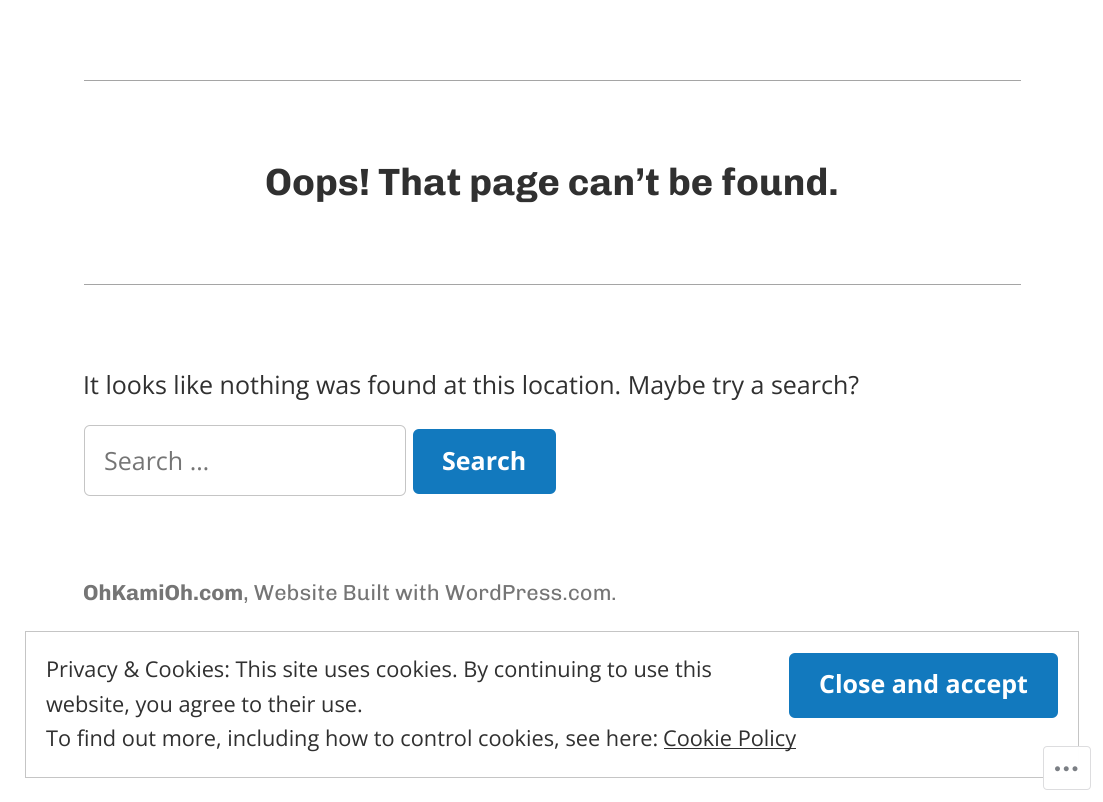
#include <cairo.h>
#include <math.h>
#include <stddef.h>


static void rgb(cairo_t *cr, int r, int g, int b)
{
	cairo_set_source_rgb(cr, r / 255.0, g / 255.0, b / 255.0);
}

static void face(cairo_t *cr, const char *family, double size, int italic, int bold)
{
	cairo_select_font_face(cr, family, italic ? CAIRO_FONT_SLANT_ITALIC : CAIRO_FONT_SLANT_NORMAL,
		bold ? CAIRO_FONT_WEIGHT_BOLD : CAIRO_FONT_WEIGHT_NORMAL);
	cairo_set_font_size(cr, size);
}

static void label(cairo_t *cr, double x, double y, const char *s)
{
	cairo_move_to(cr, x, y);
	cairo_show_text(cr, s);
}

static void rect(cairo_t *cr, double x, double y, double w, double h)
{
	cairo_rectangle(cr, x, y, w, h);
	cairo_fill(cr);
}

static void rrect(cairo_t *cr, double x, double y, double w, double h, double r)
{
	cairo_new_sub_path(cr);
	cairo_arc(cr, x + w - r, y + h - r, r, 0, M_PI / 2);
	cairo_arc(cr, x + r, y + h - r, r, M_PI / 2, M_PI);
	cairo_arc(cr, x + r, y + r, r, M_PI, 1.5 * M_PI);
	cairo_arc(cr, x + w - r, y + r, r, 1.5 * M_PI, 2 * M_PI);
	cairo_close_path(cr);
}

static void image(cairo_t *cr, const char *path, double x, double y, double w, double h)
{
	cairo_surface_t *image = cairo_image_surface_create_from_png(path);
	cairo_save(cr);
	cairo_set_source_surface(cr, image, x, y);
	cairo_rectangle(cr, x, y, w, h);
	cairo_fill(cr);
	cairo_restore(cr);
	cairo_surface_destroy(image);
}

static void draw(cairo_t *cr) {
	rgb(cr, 255, 255, 255);
	cairo_paint(cr);
	rgb(cr, 165, 165, 165);
	rect(cr, 84, 80, 937, 1);
	face(cr, "Chivo", 38, 0, 1);
	rgb(cr, 48, 48, 48);
	label(cr, 265, 195, "Oops! That page can’t be found.");
	rgb(cr, 165, 165, 165);
	rect(cr, 84, 284, 937, 1);
	face(cr, "Open Sans", 25, 0, 0);
	rgb(cr, 48, 48, 48);
	label(cr, 83, 394, "It looks like nothing was found at this location. Maybe try a search?");
	rrect(cr, 84.5, 425.5, 321, 70, 5.5);
	rgb(cr, 197, 197, 197);
	cairo_set_line_width(cr, 1);
	cairo_stroke(cr);
	rgb(cr, 117, 117, 117);
	label(cr, 104, 470, "Search …");
	rgb(cr, 18, 121, 190);
	rrect(cr, 413, 429, 143, 65, 6);
	cairo_fill(cr);
	face(cr, "Open Sans", 25, 0, 1);
	rgb(cr, 255, 255, 255);
	label(cr, 442, 470, "Search");
	face(cr, "Chivo", 21.75, 0, 1);
	rgb(cr, 117, 117, 117);
	label(cr, 83, 600, "OhKamiOh.com");
	face(cr, "Chivo", 21.75, 0, 0);
	label(cr, 243, 600, ", Website Built with WordPress.com");
	label(cr, 611, 600, ".");
	cairo_rectangle(cr, 25.5, 631.5, 1053, 146);
	rgb(cr, 197, 197, 197);
	cairo_stroke(cr);
	face(cr, "Open Sans", 21.75, 0, 0);
	rgb(cr, 48, 48, 48);
	label(cr, 46, 677, "Privacy & Cookies: This site uses cookies. By continuing to use this");
	rgb(cr, 18, 121, 190);
	rrect(cr, 789, 653, 269, 65, 6);
	cairo_fill(cr);
	face(cr, "Open Sans", 25, 0, 1);
	rgb(cr, 255, 255, 255);
	label(cr, 819, 693, "Close and accept");
	face(cr, "Open Sans", 21.75, 0, 0);
	rgb(cr, 48, 48, 48);
	label(cr, 46, 712, "website, you agree to their use.");
	label(cr, 46, 746, "To find out more, including how to control cookies, see here:");
	rect(cr, 664, 748, 132, 1);
	label(cr, 663, 746, "Cookie Policy");
	cairo_set_source_rgba(cr, 1, 1, 1, 0.98);
	rrect(cr, 1043.5, 746.5, 47, 43, 3.5);
	cairo_fill_preserve(cr);
	rgb(cr, 221, 221, 223);
	cairo_stroke(cr);
	image(cr, "image0.png", 1055, 766, 23, 6);
}

int main(void) {
	cairo_surface_t *surface = cairo_image_surface_create(CAIRO_FORMAT_RGB24, 1103, 802);
	cairo_t *cr = cairo_create(surface);
	cairo_font_options_t *options = cairo_font_options_create();
	cairo_font_options_set_hint_metrics(options, CAIRO_HINT_METRICS_OFF);
	cairo_font_options_set_hint_style(options, CAIRO_HINT_STYLE_NONE);
	cairo_set_font_options(cr, options);
	cairo_set_miter_limit(cr, 4);
	draw(cr);
	cairo_surface_write_to_png(surface, "render.png");
	cairo_font_options_destroy(options);
	cairo_destroy(cr);
	cairo_surface_destroy(surface);
	return 0;
}
